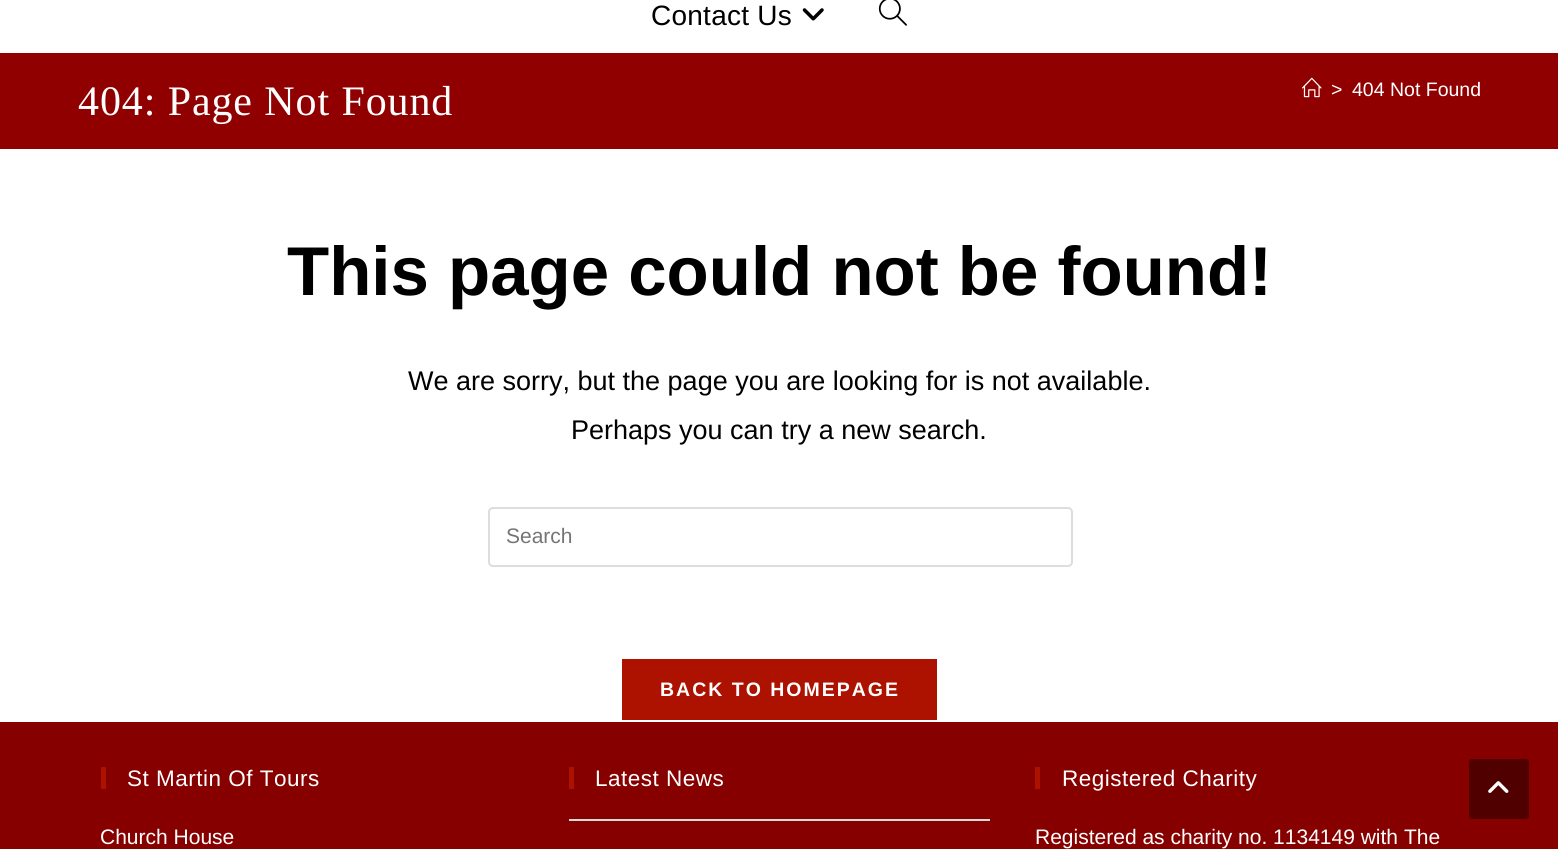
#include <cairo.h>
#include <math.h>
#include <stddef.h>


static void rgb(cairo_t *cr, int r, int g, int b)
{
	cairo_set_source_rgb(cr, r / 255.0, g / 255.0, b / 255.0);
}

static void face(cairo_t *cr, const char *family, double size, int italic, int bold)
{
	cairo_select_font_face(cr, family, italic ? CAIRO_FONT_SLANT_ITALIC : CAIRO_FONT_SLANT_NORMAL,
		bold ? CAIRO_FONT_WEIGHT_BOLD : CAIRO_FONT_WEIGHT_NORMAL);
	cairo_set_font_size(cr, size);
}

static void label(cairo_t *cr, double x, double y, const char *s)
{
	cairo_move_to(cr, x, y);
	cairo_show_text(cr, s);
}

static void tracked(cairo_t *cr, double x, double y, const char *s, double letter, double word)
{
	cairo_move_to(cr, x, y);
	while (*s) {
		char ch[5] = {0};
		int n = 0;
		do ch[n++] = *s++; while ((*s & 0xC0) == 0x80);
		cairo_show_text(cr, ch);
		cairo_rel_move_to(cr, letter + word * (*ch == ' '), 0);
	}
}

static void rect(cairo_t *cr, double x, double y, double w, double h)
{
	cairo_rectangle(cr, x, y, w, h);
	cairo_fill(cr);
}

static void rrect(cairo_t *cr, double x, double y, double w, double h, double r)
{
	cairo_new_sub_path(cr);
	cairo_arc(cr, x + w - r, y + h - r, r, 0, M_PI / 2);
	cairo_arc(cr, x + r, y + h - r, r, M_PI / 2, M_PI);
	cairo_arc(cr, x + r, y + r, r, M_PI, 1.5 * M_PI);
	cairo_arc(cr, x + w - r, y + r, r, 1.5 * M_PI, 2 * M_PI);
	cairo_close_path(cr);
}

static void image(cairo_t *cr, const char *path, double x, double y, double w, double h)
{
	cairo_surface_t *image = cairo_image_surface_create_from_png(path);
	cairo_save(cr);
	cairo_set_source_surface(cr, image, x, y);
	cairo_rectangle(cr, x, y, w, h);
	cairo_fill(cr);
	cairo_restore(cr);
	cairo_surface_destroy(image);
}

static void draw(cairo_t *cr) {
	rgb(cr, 255, 255, 255);
	cairo_paint(cr);
	face(cr, "Liberation Sans", 28, 0, 0);
	rgb(cr, 0, 0, 0);
	tracked(cr, 651, 25, "Contact Us", 0.25, 0);
	image(cr, "image0.png", 802, 8, 22, 13);
	image(cr, "image1.png", 878, 0, 29, 26);
	rgb(cr, 145, 0, 0);
	rect(cr, 0, 53, 1558, 96);
	face(cr, "Liberation Serif", 42, 0, 0);
	rgb(cr, 255, 255, 255);
	tracked(cr, 78, 115, "404: Page Not Found", 0.9, 0);
	image(cr, "image2.png", 1302, 77, 20, 21);
	face(cr, "Liberation Sans", 19.5, 0, 0);
	label(cr, 1331, 96, ">");
	label(cr, 1352, 96, "404 Not Found");
	face(cr, "Liberation Sans", 69, 0, 1);
	rgb(cr, 0, 0, 0);
	label(cr, 287, 295, "This page could not be found!");
	face(cr, "Liberation Sans", 27, 0, 0);
	label(cr, 408, 390, "We are sorry, but the page you are looking for is not available.");
	label(cr, 571, 439, "Perhaps you can try a new search.");
	rrect(cr, 489, 508, 583, 58, 4);
	rgb(cr, 221, 221, 221);
	cairo_stroke(cr);
	face(cr, "Liberation Sans", 21, 0, 0);
	rgb(cr, 117, 117, 117);
	label(cr, 506, 543, "Search");
	rgb(cr, 173, 17, 0);
	rect(cr, 622, 659, 315, 61);
	face(cr, "Liberation Sans", 19.5, 0, 1);
	rgb(cr, 255, 255, 255);
	tracked(cr, 660, 696, "BACK TO HOMEPAGE", 2, 0);
	rgb(cr, 135, 0, 0);
	rect(cr, 0, 722, 1558, 127);
	rgb(cr, 173, 17, 0);
	rect(cr, 101, 767, 5, 22);
	face(cr, "Liberation Sans", 22.5, 0, 0);
	rgb(cr, 255, 255, 255);
	tracked(cr, 127, 786, "St Martin Of Tours", 0.5, 0);
	face(cr, "Liberation Sans", 21, 0, 0);
	label(cr, 100, 844, "Church House");
	rgb(cr, 173, 17, 0);
	rect(cr, 569, 767, 5, 22);
	face(cr, "Liberation Sans", 22.5, 0, 0);
	rgb(cr, 255, 255, 255);
	tracked(cr, 595, 786, "Latest News", 0.5, 0);
	rgb(cr, 219, 219, 219);
	rect(cr, 569, 819, 421, 2);
	rgb(cr, 173, 17, 0);
	rect(cr, 1035, 767, 5, 22);
	rgb(cr, 255, 255, 255);
	tracked(cr, 1062, 786, "Registered Charity", 0.5, 0);
	face(cr, "Liberation Sans", 21, 0, 0);
	label(cr, 1035, 844, "Registered as charity no. 1134149 with The");
	rgb(cr, 81, 0, 0);
	rrect(cr, 1469, 759, 60, 60, 3);
	cairo_fill(cr);
	image(cr, "image3.png", 1488, 781, 21, 12);
}

int main(void) {
	cairo_surface_t *surface = cairo_image_surface_create(CAIRO_FORMAT_RGB24, 1558, 849);
	cairo_t *cr = cairo_create(surface);
	cairo_font_options_t *options = cairo_font_options_create();
	cairo_font_options_set_hint_metrics(options, CAIRO_HINT_METRICS_OFF);
	cairo_font_options_set_hint_style(options, CAIRO_HINT_STYLE_NONE);
	cairo_set_font_options(cr, options);
	cairo_set_miter_limit(cr, 4);
	draw(cr);
	cairo_surface_write_to_png(surface, "render.png");
	cairo_font_options_destroy(options);
	cairo_destroy(cr);
	cairo_surface_destroy(surface);
	return 0;
}
